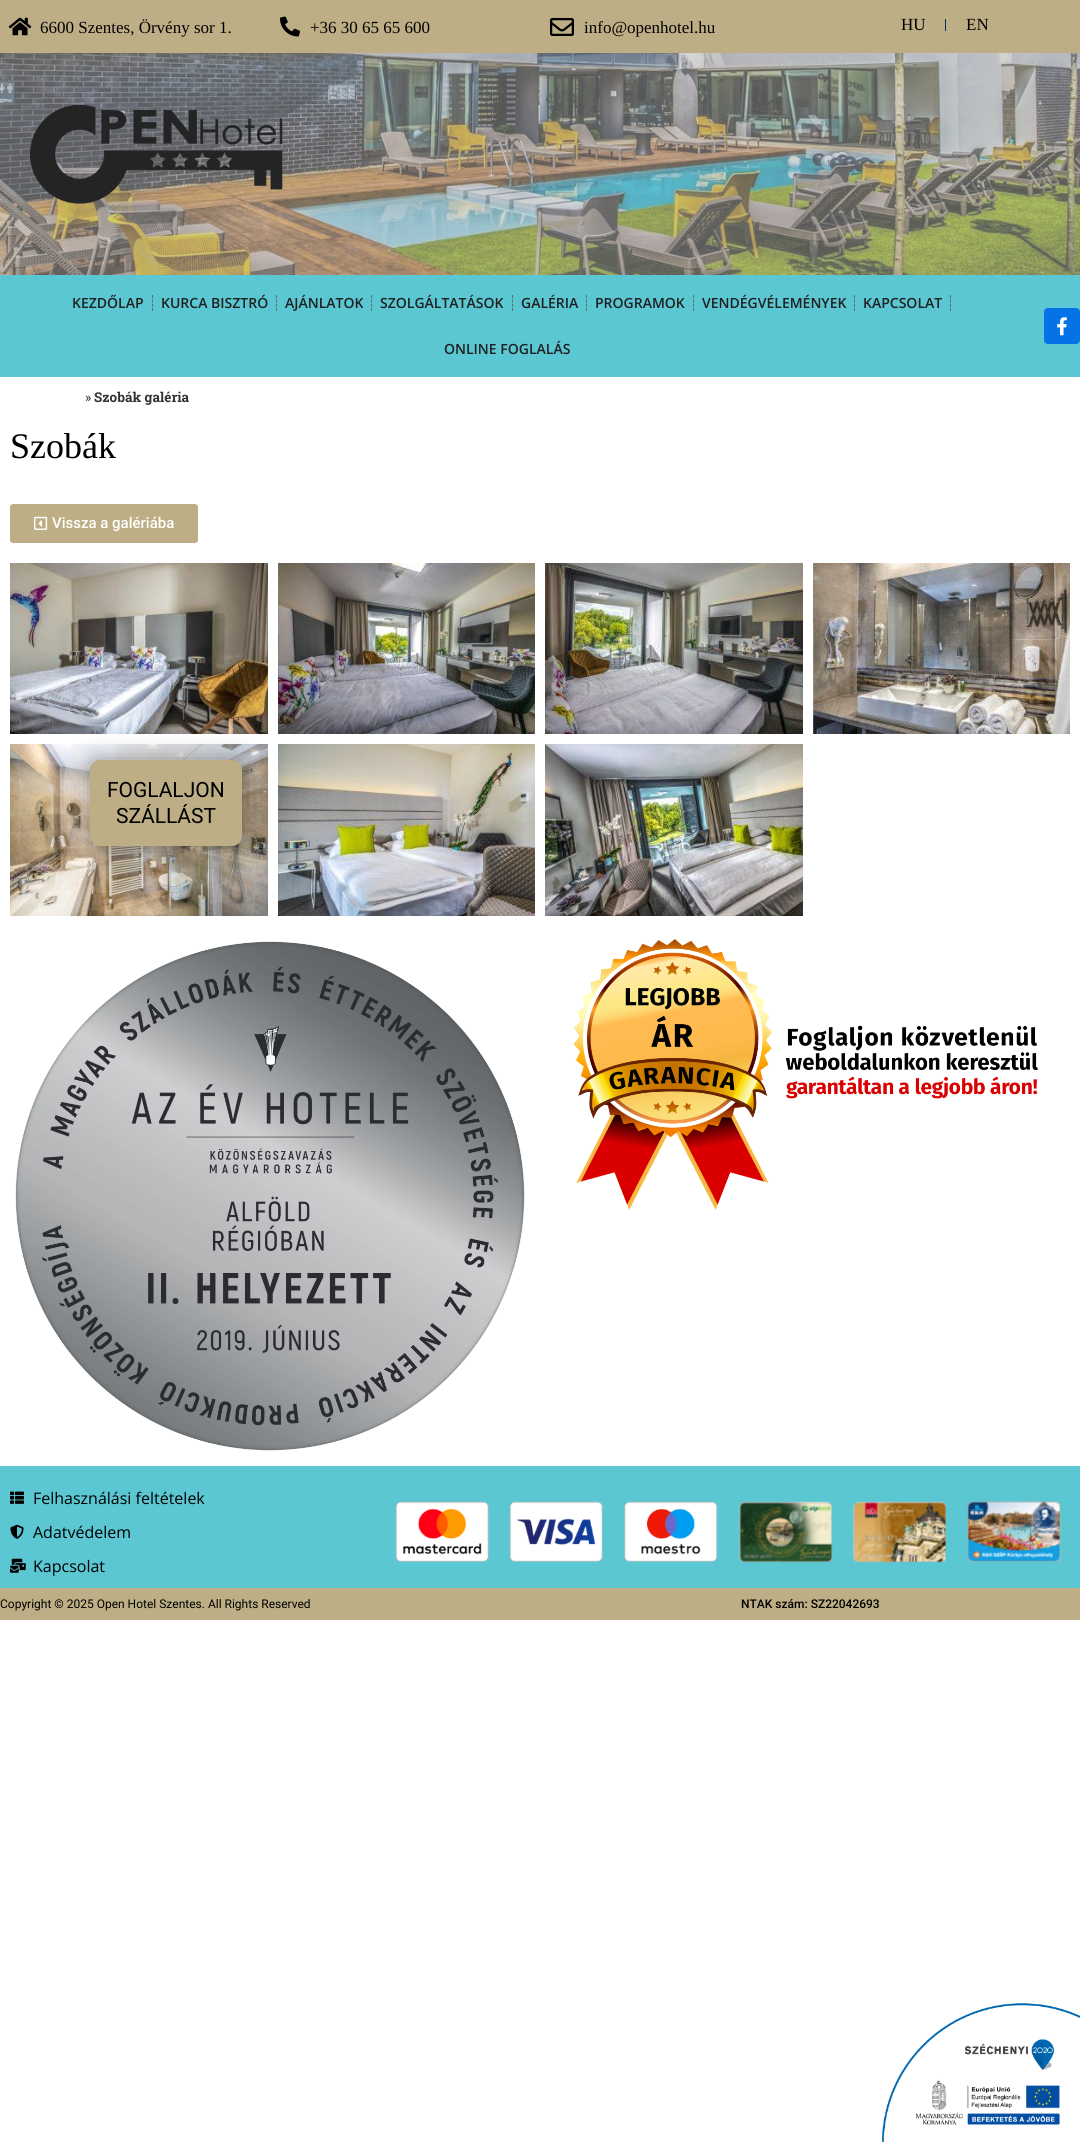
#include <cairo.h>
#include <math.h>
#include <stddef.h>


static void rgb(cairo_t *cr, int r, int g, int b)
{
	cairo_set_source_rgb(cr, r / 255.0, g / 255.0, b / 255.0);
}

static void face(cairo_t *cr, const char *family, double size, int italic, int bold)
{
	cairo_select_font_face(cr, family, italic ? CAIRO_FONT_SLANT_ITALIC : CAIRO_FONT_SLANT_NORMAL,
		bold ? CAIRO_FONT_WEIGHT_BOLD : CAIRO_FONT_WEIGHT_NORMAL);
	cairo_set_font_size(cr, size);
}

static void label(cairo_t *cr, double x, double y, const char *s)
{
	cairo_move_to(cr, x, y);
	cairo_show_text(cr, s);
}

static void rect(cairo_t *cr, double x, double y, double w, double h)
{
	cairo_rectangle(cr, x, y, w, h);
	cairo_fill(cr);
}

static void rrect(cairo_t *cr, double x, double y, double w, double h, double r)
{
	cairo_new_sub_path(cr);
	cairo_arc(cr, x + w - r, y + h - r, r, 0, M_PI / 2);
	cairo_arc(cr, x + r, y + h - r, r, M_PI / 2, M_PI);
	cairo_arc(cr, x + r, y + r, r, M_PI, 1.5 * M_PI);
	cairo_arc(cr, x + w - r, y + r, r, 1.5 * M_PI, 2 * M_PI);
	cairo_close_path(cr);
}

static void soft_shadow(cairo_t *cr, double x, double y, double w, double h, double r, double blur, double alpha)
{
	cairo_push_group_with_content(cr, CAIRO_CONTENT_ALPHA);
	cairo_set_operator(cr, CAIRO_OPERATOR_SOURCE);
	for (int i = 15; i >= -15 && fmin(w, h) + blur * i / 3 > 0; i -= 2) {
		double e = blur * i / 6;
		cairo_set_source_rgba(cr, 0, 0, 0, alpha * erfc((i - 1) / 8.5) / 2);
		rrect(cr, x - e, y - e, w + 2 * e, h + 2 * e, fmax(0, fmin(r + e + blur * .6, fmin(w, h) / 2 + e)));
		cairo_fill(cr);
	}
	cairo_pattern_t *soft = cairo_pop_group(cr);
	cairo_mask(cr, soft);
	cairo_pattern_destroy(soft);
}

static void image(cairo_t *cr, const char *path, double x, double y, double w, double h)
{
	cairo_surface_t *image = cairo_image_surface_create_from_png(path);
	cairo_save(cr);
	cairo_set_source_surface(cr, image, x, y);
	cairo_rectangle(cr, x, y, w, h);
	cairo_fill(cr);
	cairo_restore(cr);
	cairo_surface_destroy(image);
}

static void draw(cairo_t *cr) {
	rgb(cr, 255, 255, 255);
	cairo_paint(cr);
	rgb(cr, 189, 174, 133);
	rect(cr, 0, 0, 1080, 53);
	image(cr, "image0.png", 8, 17, 24, 19);
	face(cr, "Liberation Serif", 17, 0, 0);
	rgb(cr, 0, 0, 0);
	label(cr, 40, 33, "6600 Szentes, Örvény sor 1.");
	image(cr, "image1.png", 280, 16, 20, 21);
	label(cr, 310, 33, "+36 30 65 65 600");
	image(cr, "image2.png", 550, 18, 24, 18);
	label(cr, 584, 33, "info@openhotel.hu");
	label(cr, 901, 30, "HU");
	rgb(cr, 1, 44, 109);
	rect(cr, 945, 19, 1, 12);
	rgb(cr, 0, 0, 0);
	label(cr, 966, 30, "EN");
	rgb(cr, 90, 199, 211);
	rect(cr, 0, 275, 1080, 102);
	face(cr, "Open Sans SemiBold", 14, 0, 0);
	rgb(cr, 32, 32, 32);
	label(cr, 72, 308, "KEZDŐLAP");
	cairo_new_path(cr);
	cairo_move_to(cr, 152.5, 295);
	cairo_line_to(cr, 152.5, 311);
	rgb(cr, 93, 109, 111);
	cairo_set_line_width(cr, 1);
	cairo_set_dash(cr, (double[]){3, 1.33}, 2, 0);
	cairo_stroke(cr);
	rgb(cr, 32, 32, 32);
	label(cr, 161, 308, "KURCA BISZTRÓ");
	cairo_new_path(cr);
	cairo_move_to(cr, 276.5, 295);
	cairo_line_to(cr, 276.5, 311);
	rgb(cr, 93, 109, 111);
	cairo_stroke(cr);
	rgb(cr, 32, 32, 32);
	label(cr, 285, 308, "AJÁNLATOK");
	cairo_new_path(cr);
	cairo_move_to(cr, 371.5, 295);
	cairo_line_to(cr, 371.5, 311);
	rgb(cr, 93, 109, 111);
	cairo_stroke(cr);
	rgb(cr, 32, 32, 32);
	label(cr, 380, 308, "SZOLGÁLTATÁSOK");
	cairo_new_path(cr);
	cairo_move_to(cr, 512.5, 295);
	cairo_line_to(cr, 512.5, 311);
	rgb(cr, 93, 109, 111);
	cairo_stroke(cr);
	rgb(cr, 32, 32, 32);
	label(cr, 521, 308, "GALÉRIA");
	cairo_new_path(cr);
	cairo_move_to(cr, 586.5, 295);
	cairo_line_to(cr, 586.5, 311);
	rgb(cr, 93, 109, 111);
	cairo_stroke(cr);
	rgb(cr, 32, 32, 32);
	label(cr, 595, 308, "PROGRAMOK");
	cairo_new_path(cr);
	cairo_move_to(cr, 693.5, 295);
	cairo_line_to(cr, 693.5, 311);
	rgb(cr, 93, 109, 111);
	cairo_stroke(cr);
	rgb(cr, 32, 32, 32);
	label(cr, 702, 308, "VENDÉGVÉLEMÉNYEK");
	cairo_new_path(cr);
	cairo_move_to(cr, 854.5, 295);
	cairo_line_to(cr, 854.5, 311);
	rgb(cr, 93, 109, 111);
	cairo_stroke(cr);
	rgb(cr, 32, 32, 32);
	label(cr, 863, 308, "KAPCSOLAT");
	cairo_new_path(cr);
	cairo_move_to(cr, 950.5, 295);
	cairo_line_to(cr, 950.5, 311);
	rgb(cr, 93, 109, 111);
	cairo_stroke(cr);
	rgb(cr, 32, 32, 32);
	label(cr, 444, 354, "ONLINE FOGLALÁS");
	rgb(cr, 5, 114, 230);
	rrect(cr, 1044, 308, 36, 36, 4);
	cairo_fill(cr);
	image(cr, "image3.png", 1057, 317, 10, 19);
	face(cr, "Roboto Slab", 13.5, 0, 0);
	rgb(cr, 51, 51, 51);
	label(cr, 85, 402, "»");
	face(cr, "Roboto Slab", 13.5, 0, 1);
	label(cr, 94, 402, "Szobák galéria");
	image(cr, "image4.png", 0, 53, 1080, 222);
	image(cr, "image5.png", 30, 105, 253, 99);
	image(cr, "image7.png", 10, 563, 258, 171);
	image(cr, "image8.png", 278, 563, 257, 171);
	image(cr, "image11.png", 10, 744, 258, 172);
	image(cr, "image12.png", 278, 744, 257, 172);
	rgb(cr, 0, 0, 0);
	soft_shadow(cr, 89, 759, 154, 88, 11, 12.5, 0.35);
	rgb(cr, 189, 174, 133);
	rrect(cr, 90, 760, 152, 86, 10);
	cairo_fill(cr);
	face(cr, "Roboto", 21, 0, 0);
	rgb(cr, 0, 0, 0);
	label(cr, 107, 797, "FOGLALJON");
	label(cr, 116, 823, "SZÁLLÁST");
	face(cr, "Liberation Serif", 36, 0, 0);
	label(cr, 10, 458, "Szobák");
	rgb(cr, 189, 174, 133);
	rrect(cr, 10, 504, 188, 39, 3);
	cairo_fill(cr);
	image(cr, "image6.png", 34, 516, 14, 14);
	face(cr, "Roboto Medium", 15, 0, 0);
	rgb(cr, 255, 255, 255);
	label(cr, 52, 528, "Vissza a galériába");
	image(cr, "image9.png", 545, 563, 258, 171);
	image(cr, "image10.png", 813, 563, 257, 171);
	image(cr, "image13.png", 545, 744, 258, 172);
	image(cr, "image14.png", 15, 941, 510, 510);
	image(cr, "image15.png", 573, 939, 465, 271);
	rgb(cr, 90, 199, 211);
	rect(cr, 0, 1466, 1080, 122);
	image(cr, "image16.png", 10, 1491, 14, 13);
	face(cr, "Open Sans", 16, 0, 0);
	rgb(cr, 0, 0, 0);
	label(cr, 33, 1504, "Felhasználási feltételek");
	image(cr, "image17.png", 10, 1524, 14, 15);
	label(cr, 33, 1538, "Adatvédelem");
	image(cr, "image18.png", 10, 1558, 16, 15);
	label(cr, 33, 1572, "Kapcsolat");
	image(cr, "image19.png", 395, 1501, 666, 62);
	rgb(cr, 189, 174, 133);
	rect(cr, 0, 1588, 1080, 32);
	face(cr, "Roboto", 12, 0, 0);
	rgb(cr, 0, 0, 0);
	label(cr, 0, 1608, "Copyright © 2025 Open Hotel Szentes. All Rights Reserved");
	face(cr, "Roboto Medium", 12, 0, 0);
	label(cr, 741, 1608, "NTAK szám: SZ22042693");
	image(cr, "image20.png", 882, 2003, 198, 139);
}

int main(void) {
	cairo_surface_t *surface = cairo_image_surface_create(CAIRO_FORMAT_RGB24, 1080, 2149);
	cairo_t *cr = cairo_create(surface);
	cairo_font_options_t *options = cairo_font_options_create();
	cairo_font_options_set_hint_metrics(options, CAIRO_HINT_METRICS_OFF);
	cairo_font_options_set_hint_style(options, CAIRO_HINT_STYLE_NONE);
	cairo_set_font_options(cr, options);
	cairo_set_miter_limit(cr, 4);
	draw(cr);
	cairo_surface_write_to_png(surface, "render.png");
	cairo_font_options_destroy(options);
	cairo_destroy(cr);
	cairo_surface_destroy(surface);
	return 0;
}
